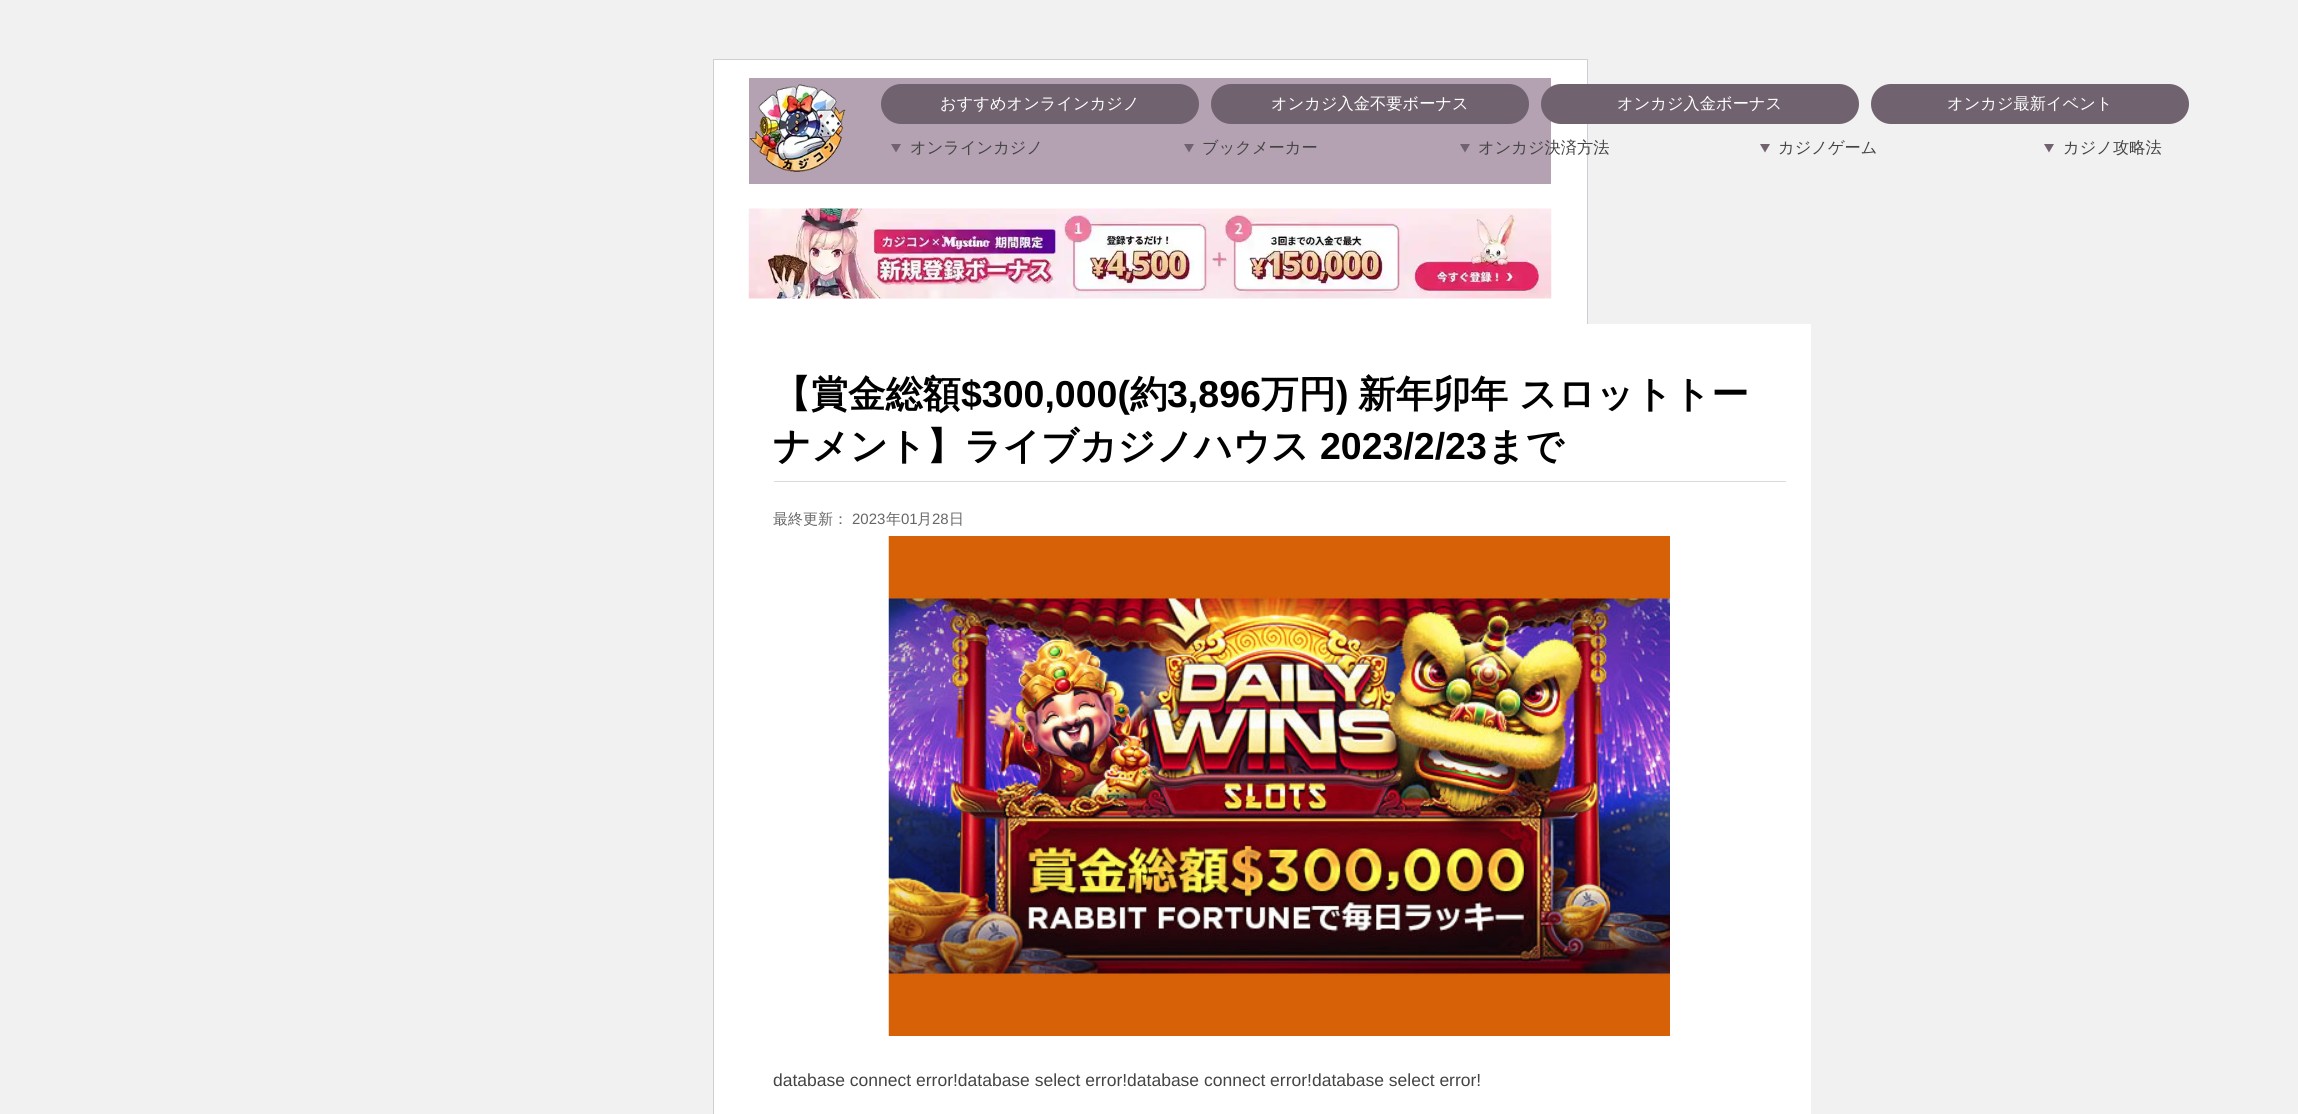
#include <cairo.h>
#include <math.h>
#include <stddef.h>


static void rgb(cairo_t *cr, int r, int g, int b)
{
	cairo_set_source_rgb(cr, r / 255.0, g / 255.0, b / 255.0);
}

static void face(cairo_t *cr, const char *family, double size, int italic, int bold)
{
	cairo_select_font_face(cr, family, italic ? CAIRO_FONT_SLANT_ITALIC : CAIRO_FONT_SLANT_NORMAL,
		bold ? CAIRO_FONT_WEIGHT_BOLD : CAIRO_FONT_WEIGHT_NORMAL);
	cairo_set_font_size(cr, size);
}

static void label(cairo_t *cr, double x, double y, const char *s)
{
	cairo_move_to(cr, x, y);
	cairo_show_text(cr, s);
}

static void rect(cairo_t *cr, double x, double y, double w, double h)
{
	cairo_rectangle(cr, x, y, w, h);
	cairo_fill(cr);
}

static void rrect(cairo_t *cr, double x, double y, double w, double h, double r)
{
	cairo_new_sub_path(cr);
	cairo_arc(cr, x + w - r, y + h - r, r, 0, M_PI / 2);
	cairo_arc(cr, x + r, y + h - r, r, M_PI / 2, M_PI);
	cairo_arc(cr, x + r, y + r, r, M_PI, 1.5 * M_PI);
	cairo_arc(cr, x + w - r, y + r, r, 1.5 * M_PI, 2 * M_PI);
	cairo_close_path(cr);
}

static void image(cairo_t *cr, const char *path, double x, double y, double w, double h)
{
	cairo_surface_t *image = cairo_image_surface_create_from_png(path);
	cairo_save(cr);
	cairo_set_source_surface(cr, image, x, y);
	cairo_rectangle(cr, x, y, w, h);
	cairo_fill(cr);
	cairo_restore(cr);
	cairo_surface_destroy(image);
}

static void draw(cairo_t *cr) {
	rgb(cr, 241, 241, 241);
	cairo_paint(cr);
	rgb(cr, 255, 255, 255);
	cairo_rectangle(cr, 713.5, 59.5, 874, 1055);
	cairo_fill_preserve(cr);
	rgb(cr, 204, 208, 212);
	cairo_set_line_width(cr, 1);
	cairo_stroke(cr);
	rgb(cr, 180, 162, 178);
	rect(cr, 749, 78, 802, 106);
	image(cr, "image0.png", 749, 84, 97, 88);
	rgb(cr, 112, 99, 111);
	rrect(cr, 881, 84, 318, 40, 20);
	cairo_fill(cr);
	face(cr, "WenQuanYi Zen Hei Medium", 16.25, 0, 0);
	rgb(cr, 255, 255, 255);
	label(cr, 940, 109, "おすすめオンラインカジノ");
	rgb(cr, 112, 99, 111);
	rrect(cr, 1211, 84, 318, 40, 20);
	cairo_fill(cr);
	rgb(cr, 255, 255, 255);
	label(cr, 1271, 109, "オンカジ入金不要ボーナス");
	rgb(cr, 112, 99, 111);
	rrect(cr, 1541, 84, 318, 40, 20);
	cairo_fill(cr);
	rgb(cr, 255, 255, 255);
	label(cr, 1617, 109, "オンカジ入金ボーナス");
	rgb(cr, 112, 99, 111);
	rrect(cr, 1871, 84, 318, 40, 20);
	cairo_fill(cr);
	rgb(cr, 255, 255, 255);
	label(cr, 1947, 109, "オンカジ最新イベント");
	rgb(cr, 112, 99, 111);
	cairo_new_path(cr);
	cairo_move_to(cr, 891, 144);
	cairo_line_to(cr, 901, 144);
	cairo_line_to(cr, 896, 152.5);
	cairo_close_path(cr);
	cairo_fill(cr);
	rgb(cr, 68, 68, 68);
	label(cr, 910, 153, "オンラインカジノ");
	rgb(cr, 112, 99, 111);
	cairo_new_path(cr);
	cairo_move_to(cr, 1184, 144);
	cairo_line_to(cr, 1194, 144);
	cairo_line_to(cr, 1189, 152.5);
	cairo_close_path(cr);
	cairo_fill(cr);
	rgb(cr, 68, 68, 68);
	label(cr, 1202, 153, "ブックメーカー");
	rgb(cr, 112, 99, 111);
	cairo_new_path(cr);
	cairo_move_to(cr, 1460, 144);
	cairo_line_to(cr, 1470, 144);
	cairo_line_to(cr, 1465, 152.5);
	cairo_close_path(cr);
	cairo_fill(cr);
	rgb(cr, 68, 68, 68);
	label(cr, 1478, 153, "オンカジ決済方法");
	rgb(cr, 112, 99, 111);
	cairo_new_path(cr);
	cairo_move_to(cr, 1760, 144);
	cairo_line_to(cr, 1770, 144);
	cairo_line_to(cr, 1765, 152.5);
	cairo_close_path(cr);
	cairo_fill(cr);
	rgb(cr, 68, 68, 68);
	label(cr, 1778, 153, "カジノゲーム");
	rgb(cr, 112, 99, 111);
	cairo_new_path(cr);
	cairo_move_to(cr, 2044, 144);
	cairo_line_to(cr, 2054, 144);
	cairo_line_to(cr, 2049, 152.5);
	cairo_close_path(cr);
	cairo_fill(cr);
	rgb(cr, 68, 68, 68);
	label(cr, 2063, 153, "カジノ攻略法");
	image(cr, "image1.png", 748, 208, 804, 91);
	rgb(cr, 255, 255, 255);
	rect(cr, 1587, 324, 224, 790);
	rgb(cr, 218, 218, 218);
	rect(cr, 774, 481, 1012, 1);
	face(cr, "WenQuanYi Zen Hei", 37.5, 0, 1);
	rgb(cr, 0, 0, 0);
	label(cr, 773, 407, "【賞金総額");
	face(cr, "Liberation Sans", 37.5, 0, 1);
	label(cr, 961, 407, "$300,000(");
	face(cr, "WenQuanYi Zen Hei", 37.5, 0, 1);
	label(cr, 1130, 407, "約");
	face(cr, "Liberation Sans", 37.5, 0, 1);
	label(cr, 1167, 407, "3,896");
	face(cr, "WenQuanYi Zen Hei", 37.5, 0, 1);
	label(cr, 1261, 407, "万円");
	face(cr, "Liberation Sans", 37.5, 0, 1);
	label(cr, 1336, 407, ")");
	face(cr, "WenQuanYi Zen Hei", 37.5, 0, 1);
	label(cr, 1358, 407, "新年卯年 スロットトー");
	label(cr, 773, 459, "ナメント】ライブカジノハウス");
	face(cr, "Liberation Sans", 37.5, 0, 1);
	label(cr, 1320, 459, "2023/2/23");
	face(cr, "WenQuanYi Zen Hei", 37.5, 0, 1);
	label(cr, 1487, 459, "まで");
	face(cr, "WenQuanYi Zen Hei Medium", 15, 0, 0);
	rgb(cr, 102, 102, 102);
	label(cr, 773, 524, "最終更新：");
	face(cr, "Liberation Sans", 15, 0, 0);
	label(cr, 852, 524, "2023");
	face(cr, "WenQuanYi Zen Hei Medium", 15, 0, 0);
	label(cr, 886, 524, "年");
	face(cr, "Liberation Sans", 15, 0, 0);
	label(cr, 901, 524, "01");
	face(cr, "WenQuanYi Zen Hei Medium", 15, 0, 0);
	label(cr, 917, 524, "月");
	face(cr, "Liberation Sans", 15, 0, 0);
	label(cr, 932, 524, "28");
	face(cr, "WenQuanYi Zen Hei Medium", 15, 0, 0);
	label(cr, 949, 524, "日");
	image(cr, "image2.png", 888, 536, 782, 500);
	face(cr, "Liberation Sans", 17.5, 0, 0);
	rgb(cr, 68, 68, 68);
	label(cr, 773, 1086, "database connect error!database select error!database connect error!database select error!");
}

int main(void) {
	cairo_surface_t *surface = cairo_image_surface_create(CAIRO_FORMAT_RGB24, 2298, 1114);
	cairo_t *cr = cairo_create(surface);
	cairo_font_options_t *options = cairo_font_options_create();
	cairo_font_options_set_hint_metrics(options, CAIRO_HINT_METRICS_OFF);
	cairo_font_options_set_hint_style(options, CAIRO_HINT_STYLE_NONE);
	cairo_set_font_options(cr, options);
	cairo_set_miter_limit(cr, 4);
	draw(cr);
	cairo_surface_write_to_png(surface, "render.png");
	cairo_font_options_destroy(options);
	cairo_destroy(cr);
	cairo_surface_destroy(surface);
	return 0;
}
